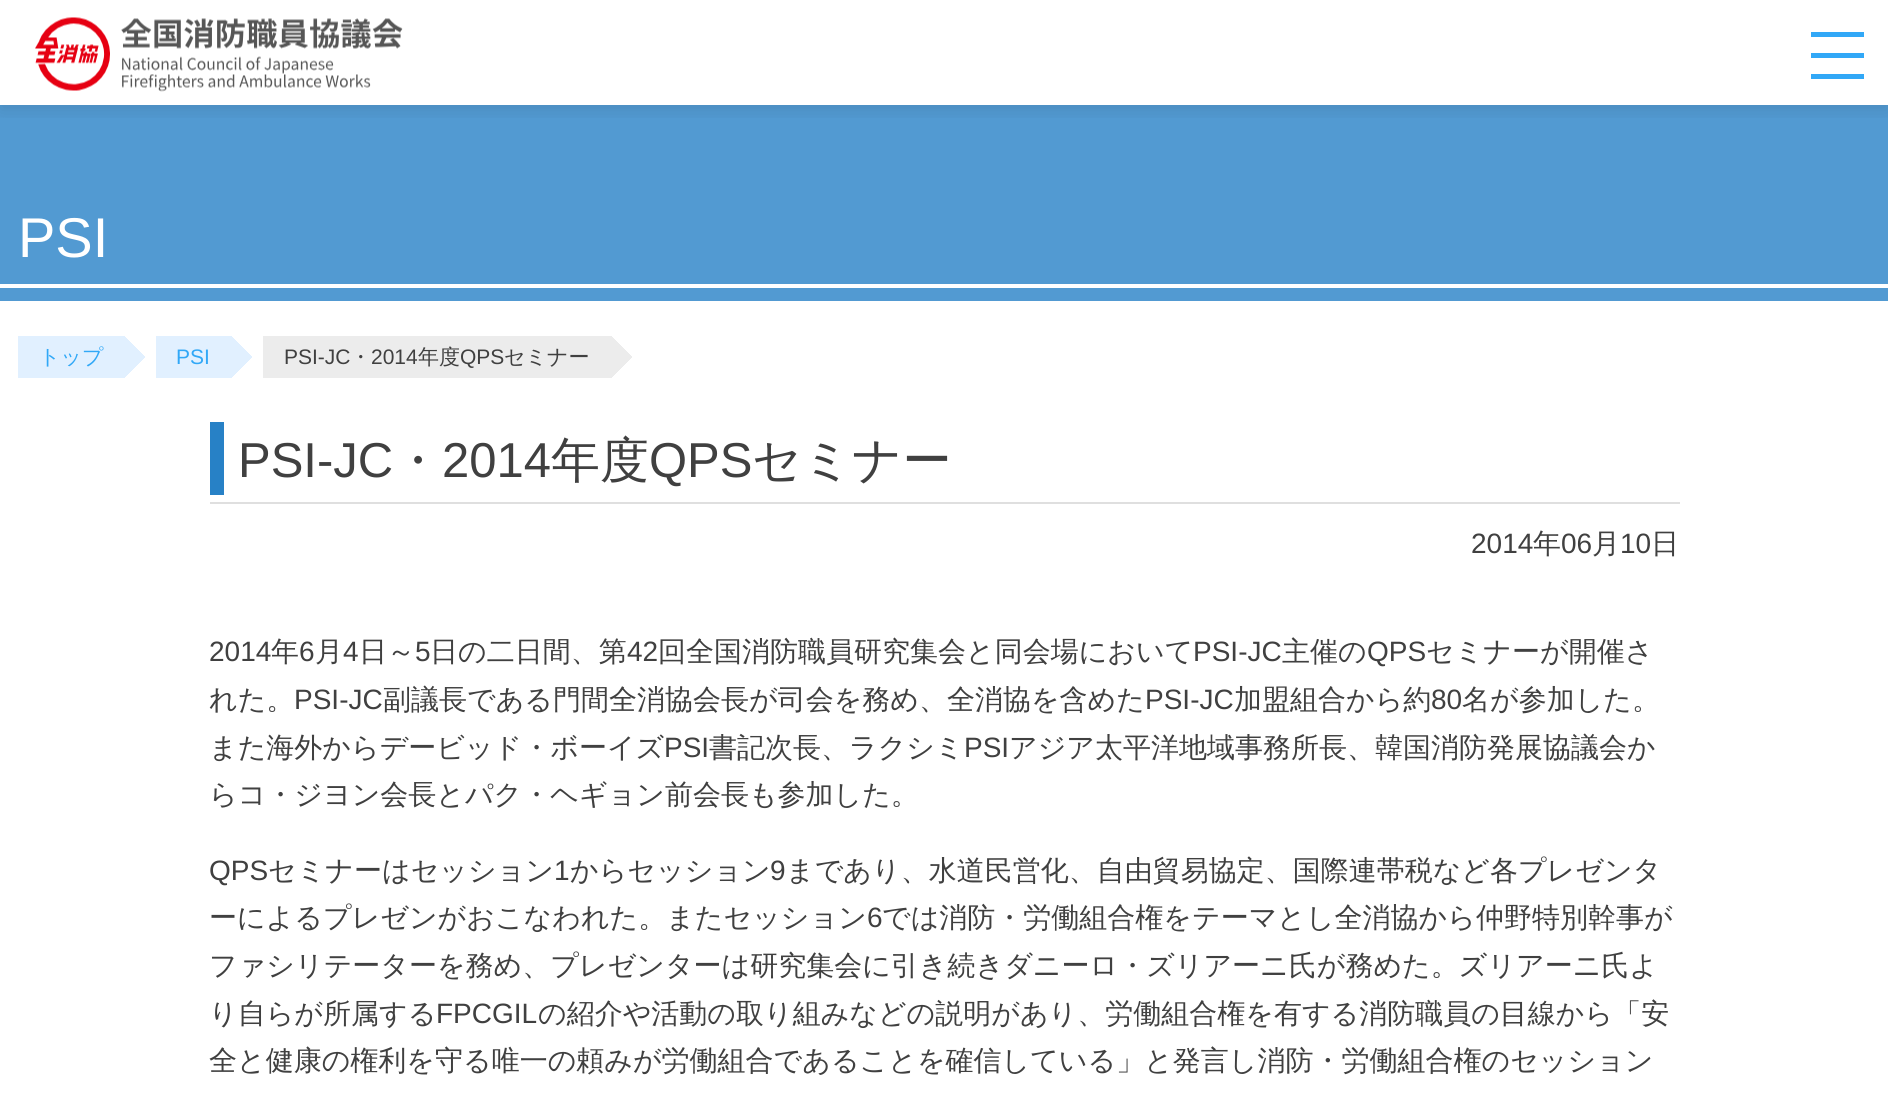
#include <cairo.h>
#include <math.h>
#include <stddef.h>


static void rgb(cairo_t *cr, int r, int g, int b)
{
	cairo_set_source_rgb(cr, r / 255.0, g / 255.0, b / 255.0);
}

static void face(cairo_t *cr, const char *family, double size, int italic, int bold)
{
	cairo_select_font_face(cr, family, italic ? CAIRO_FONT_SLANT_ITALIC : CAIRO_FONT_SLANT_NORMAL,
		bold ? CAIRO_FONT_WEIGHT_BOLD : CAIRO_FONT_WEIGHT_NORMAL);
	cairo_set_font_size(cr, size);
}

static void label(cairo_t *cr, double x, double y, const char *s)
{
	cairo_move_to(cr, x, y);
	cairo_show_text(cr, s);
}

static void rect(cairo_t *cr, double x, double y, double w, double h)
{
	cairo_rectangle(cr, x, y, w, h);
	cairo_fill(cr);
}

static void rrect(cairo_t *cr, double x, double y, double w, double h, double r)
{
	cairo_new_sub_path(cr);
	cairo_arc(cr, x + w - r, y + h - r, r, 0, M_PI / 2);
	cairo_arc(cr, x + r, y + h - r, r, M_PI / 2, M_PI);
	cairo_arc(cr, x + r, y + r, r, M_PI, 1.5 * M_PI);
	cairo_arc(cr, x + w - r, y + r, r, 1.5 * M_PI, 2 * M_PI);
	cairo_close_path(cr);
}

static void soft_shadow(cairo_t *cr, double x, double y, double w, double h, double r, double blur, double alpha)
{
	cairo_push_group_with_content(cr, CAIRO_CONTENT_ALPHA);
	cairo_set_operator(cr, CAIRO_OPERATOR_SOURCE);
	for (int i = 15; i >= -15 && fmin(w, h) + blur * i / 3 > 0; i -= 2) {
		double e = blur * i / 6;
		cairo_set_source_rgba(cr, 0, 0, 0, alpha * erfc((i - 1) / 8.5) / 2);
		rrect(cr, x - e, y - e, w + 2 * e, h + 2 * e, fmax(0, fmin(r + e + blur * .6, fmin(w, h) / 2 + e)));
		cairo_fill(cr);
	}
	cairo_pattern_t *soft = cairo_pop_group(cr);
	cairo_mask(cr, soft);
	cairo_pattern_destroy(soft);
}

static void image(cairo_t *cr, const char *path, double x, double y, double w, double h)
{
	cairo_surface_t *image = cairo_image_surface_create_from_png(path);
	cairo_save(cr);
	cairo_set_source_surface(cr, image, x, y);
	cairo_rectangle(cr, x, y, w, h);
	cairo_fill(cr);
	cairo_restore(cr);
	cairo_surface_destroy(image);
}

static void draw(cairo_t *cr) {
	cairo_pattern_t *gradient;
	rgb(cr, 255, 255, 255);
	cairo_paint(cr);
	rgb(cr, 82, 154, 210);
	rect(cr, 0, 105, 1888, 196);
	cairo_save(cr);
	cairo_rectangle(cr, 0, 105, 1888, 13);
	cairo_clip(cr);
	rgb(cr, 0, 0, 0);
	soft_shadow(cr, 0, 5, 1888, 105, 0, 9, 0.1);
	cairo_restore(cr);
	image(cr, "image0.png", 35, 17, 368, 75);
	rgb(cr, 49, 168, 247);
	rect(cr, 1811, 32, 53, 5);
	rect(cr, 1811, 53, 53, 5);
	rect(cr, 1811, 74, 53, 5);
	face(cr, "Liberation Sans", 56, 0, 0);
	rgb(cr, 255, 255, 255);
	label(cr, 18, 257, "PSI");
	rect(cr, 0, 284, 1888, 4);
	rgb(cr, 225, 240, 255);
	rect(cr, 18, 336, 106, 42);
	face(cr, "WenQuanYi Zen Hei Medium", 21, 0, 0);
	rgb(cr, 49, 168, 247);
	label(cr, 39, 364, "トップ");
	gradient = cairo_pattern_create_linear(145, 378, 124, 357);
	cairo_pattern_add_color_stop_rgba(gradient, 0.5, 1, 1, 1, 1);
	cairo_pattern_add_color_stop_rgba(gradient, 0.5, 0.882, 0.941, 1, 1);
	cairo_set_source(cr, gradient);
	cairo_pattern_destroy(gradient);
	rect(cr, 124, 357, 21, 21);
	gradient = cairo_pattern_create_linear(145, 336, 124, 357);
	cairo_pattern_add_color_stop_rgba(gradient, 0.5, 1, 1, 1, 1);
	cairo_pattern_add_color_stop_rgba(gradient, 0.5, 0.882, 0.941, 1, 1);
	cairo_set_source(cr, gradient);
	cairo_pattern_destroy(gradient);
	rect(cr, 124, 336, 21, 21);
	rgb(cr, 225, 240, 255);
	rect(cr, 156, 336, 75, 42);
	face(cr, "Liberation Sans", 21, 0, 0);
	rgb(cr, 49, 168, 247);
	label(cr, 176, 364, "PSI");
	gradient = cairo_pattern_create_linear(252, 378, 231, 357);
	cairo_pattern_add_color_stop_rgba(gradient, 0.5, 1, 1, 1, 1);
	cairo_pattern_add_color_stop_rgba(gradient, 0.5, 0.882, 0.941, 1, 1);
	cairo_set_source(cr, gradient);
	cairo_pattern_destroy(gradient);
	rect(cr, 231, 357, 21, 21);
	gradient = cairo_pattern_create_linear(252, 336, 231, 357);
	cairo_pattern_add_color_stop_rgba(gradient, 0.5, 1, 1, 1, 1);
	cairo_pattern_add_color_stop_rgba(gradient, 0.5, 0.882, 0.941, 1, 1);
	cairo_set_source(cr, gradient);
	cairo_pattern_destroy(gradient);
	rect(cr, 231, 336, 21, 21);
	rgb(cr, 236, 236, 236);
	rect(cr, 263, 336, 348, 42);
	rgb(cr, 64, 64, 64);
	label(cr, 284, 364, "PSI-JC");
	face(cr, "WenQuanYi Zen Hei Medium", 21, 0, 0);
	label(cr, 350, 364, "・");
	face(cr, "Liberation Sans", 21, 0, 0);
	label(cr, 371, 364, "2014");
	face(cr, "WenQuanYi Zen Hei Medium", 21, 0, 0);
	label(cr, 418, 364, "年度");
	face(cr, "Liberation Sans", 21, 0, 0);
	label(cr, 460, 364, "QPS");
	face(cr, "WenQuanYi Zen Hei Medium", 21, 0, 0);
	label(cr, 504, 364, "セミナー");
	gradient = cairo_pattern_create_linear(632, 378, 611, 357);
	cairo_pattern_add_color_stop_rgba(gradient, 0.5, 1, 1, 1, 1);
	cairo_pattern_add_color_stop_rgba(gradient, 0.5, 0.925, 0.925, 0.925, 1);
	cairo_set_source(cr, gradient);
	cairo_pattern_destroy(gradient);
	rect(cr, 611, 357, 21, 21);
	gradient = cairo_pattern_create_linear(632, 336, 611, 357);
	cairo_pattern_add_color_stop_rgba(gradient, 0.5, 1, 1, 1, 1);
	cairo_pattern_add_color_stop_rgba(gradient, 0.5, 0.925, 0.925, 0.925, 1);
	cairo_set_source(cr, gradient);
	cairo_pattern_destroy(gradient);
	rect(cr, 611, 336, 21, 21);
	rgb(cr, 39, 129, 198);
	rect(cr, 210, 422, 14, 73);
	face(cr, "Liberation Sans", 49, 0, 0);
	rgb(cr, 64, 64, 64);
	label(cr, 238, 477, "PSI-JC");
	face(cr, "WenQuanYi Zen Hei Medium", 49, 0, 0);
	label(cr, 393, 477, "・");
	face(cr, "Liberation Sans", 49, 0, 0);
	label(cr, 442, 477, "2014");
	face(cr, "WenQuanYi Zen Hei Medium", 49, 0, 0);
	label(cr, 551, 477, "年度");
	face(cr, "Liberation Sans", 49, 0, 0);
	label(cr, 649, 477, "QPS");
	face(cr, "WenQuanYi Zen Hei Medium", 49, 0, 0);
	label(cr, 752, 477, "セミナー");
	rgb(cr, 223, 223, 223);
	rect(cr, 210, 502, 1470, 2);
	face(cr, "Liberation Sans", 28, 0, 0);
	rgb(cr, 64, 64, 64);
	label(cr, 1471, 553, "2014");
	face(cr, "WenQuanYi Zen Hei Medium", 28, 0, 0);
	label(cr, 1533, 553, "年");
	face(cr, "Liberation Sans", 28, 0, 0);
	label(cr, 1561, 553, "06");
	face(cr, "WenQuanYi Zen Hei Medium", 28, 0, 0);
	label(cr, 1592, 553, "月");
	face(cr, "Liberation Sans", 28, 0, 0);
	label(cr, 1620, 553, "10");
	face(cr, "WenQuanYi Zen Hei Medium", 28, 0, 0);
	label(cr, 1651, 553, "日");
	face(cr, "Liberation Sans", 28, 0, 0);
	label(cr, 209, 661, "2014");
	face(cr, "WenQuanYi Zen Hei Medium", 28, 0, 0);
	label(cr, 271, 661, "年");
	face(cr, "Liberation Sans", 28, 0, 0);
	label(cr, 299, 661, "6");
	face(cr, "WenQuanYi Zen Hei Medium", 28, 0, 0);
	label(cr, 315, 661, "月");
	face(cr, "Liberation Sans", 28, 0, 0);
	label(cr, 343, 661, "4");
	face(cr, "WenQuanYi Zen Hei Medium", 28, 0, 0);
	label(cr, 359, 661, "日～");
	face(cr, "Liberation Sans", 28, 0, 0);
	label(cr, 415, 661, "5");
	face(cr, "WenQuanYi Zen Hei Medium", 28, 0, 0);
	label(cr, 430, 661, "日の二日間、第");
	face(cr, "Liberation Sans", 28, 0, 0);
	label(cr, 627, 661, "42");
	face(cr, "WenQuanYi Zen Hei Medium", 28, 0, 0);
	label(cr, 658, 661, "回全国消防職員研究集会と同会場において");
	face(cr, "Liberation Sans", 28, 0, 0);
	label(cr, 1193, 661, "PSI-JC");
	face(cr, "WenQuanYi Zen Hei Medium", 28, 0, 0);
	label(cr, 1282, 661, "主催の");
	face(cr, "Liberation Sans", 28, 0, 0);
	label(cr, 1367, 661, "QPS");
	face(cr, "WenQuanYi Zen Hei Medium", 28, 0, 0);
	label(cr, 1426, 661, "セミナーが開催さ");
	label(cr, 209, 709, "れた。");
	face(cr, "Liberation Sans", 28, 0, 0);
	label(cr, 294, 709, "PSI-JC");
	face(cr, "WenQuanYi Zen Hei Medium", 28, 0, 0);
	label(cr, 383, 709, "副議長である門間全消協会長が司会を務め、全消協を含めた");
	face(cr, "Liberation Sans", 28, 0, 0);
	label(cr, 1145, 709, "PSI-JC");
	face(cr, "WenQuanYi Zen Hei Medium", 28, 0, 0);
	label(cr, 1234, 709, "加盟組合から約");
	face(cr, "Liberation Sans", 28, 0, 0);
	label(cr, 1431, 709, "80");
	face(cr, "WenQuanYi Zen Hei Medium", 28, 0, 0);
	label(cr, 1462, 709, "名が参加した。");
	label(cr, 209, 757, "また海外からデービッド・ボーイズ");
	face(cr, "Liberation Sans", 28, 0, 0);
	label(cr, 664, 757, "PSI");
	face(cr, "WenQuanYi Zen Hei Medium", 28, 0, 0);
	label(cr, 709, 757, "書記次長、ラクシミ");
	face(cr, "Liberation Sans", 28, 0, 0);
	label(cr, 964, 757, "PSI");
	face(cr, "WenQuanYi Zen Hei Medium", 28, 0, 0);
	label(cr, 1009, 757, "アジア太平洋地域事務所長、韓国消防発展協議会か");
	label(cr, 209, 804, "らコ・ジヨン会長とパク・ヘギョン前会長も参加した。");
	face(cr, "Liberation Sans", 28, 0, 0);
	label(cr, 209, 880, "QPS");
	face(cr, "WenQuanYi Zen Hei Medium", 28, 0, 0);
	label(cr, 268, 880, "セミナーはセッション");
	face(cr, "Liberation Sans", 28, 0, 0);
	label(cr, 554, 880, "1");
	face(cr, "WenQuanYi Zen Hei Medium", 28, 0, 0);
	label(cr, 570, 880, "からセッション");
	face(cr, "Liberation Sans", 28, 0, 0);
	label(cr, 770, 880, "9");
	face(cr, "WenQuanYi Zen Hei Medium", 28, 0, 0);
	label(cr, 786, 880, "まであり、水道民営化、自由貿易協定、国際連帯税など各プレゼンタ");
	label(cr, 209, 927, "ーによるプレゼンがおこなわれた。またセッション");
	face(cr, "Liberation Sans", 28, 0, 0);
	label(cr, 867, 927, "6");
	face(cr, "WenQuanYi Zen Hei Medium", 28, 0, 0);
	label(cr, 882, 927, "では消防・労働組合権をテーマとし全消協から仲野特別幹事が");
	label(cr, 209, 975, "ファシリテーターを務め、プレゼンターは研究集会に引き続きダニーロ・ズリアーニ氏が務めた。ズリアーニ氏よ");
	label(cr, 209, 1023, "り自らが所属する");
	face(cr, "Liberation Sans", 28, 0, 0);
	label(cr, 436, 1023, "FPCGIL");
	face(cr, "WenQuanYi Zen Hei Medium", 28, 0, 0);
	label(cr, 538, 1023, "の紹介や活動の取り組みなどの説明があり、労働組合権を有する消防職員の目線から「安");
	label(cr, 209, 1070, "全と健康の権利を守る唯一の頼みが労働組合であることを確信している」と発言し消防・労働組合権のセッション");
}

int main(void) {
	cairo_surface_t *surface = cairo_image_surface_create(CAIRO_FORMAT_RGB24, 1888, 1100);
	cairo_t *cr = cairo_create(surface);
	cairo_font_options_t *options = cairo_font_options_create();
	cairo_font_options_set_hint_metrics(options, CAIRO_HINT_METRICS_OFF);
	cairo_font_options_set_hint_style(options, CAIRO_HINT_STYLE_NONE);
	cairo_set_font_options(cr, options);
	cairo_set_miter_limit(cr, 4);
	draw(cr);
	cairo_surface_write_to_png(surface, "render.png");
	cairo_font_options_destroy(options);
	cairo_destroy(cr);
	cairo_surface_destroy(surface);
	return 0;
}
